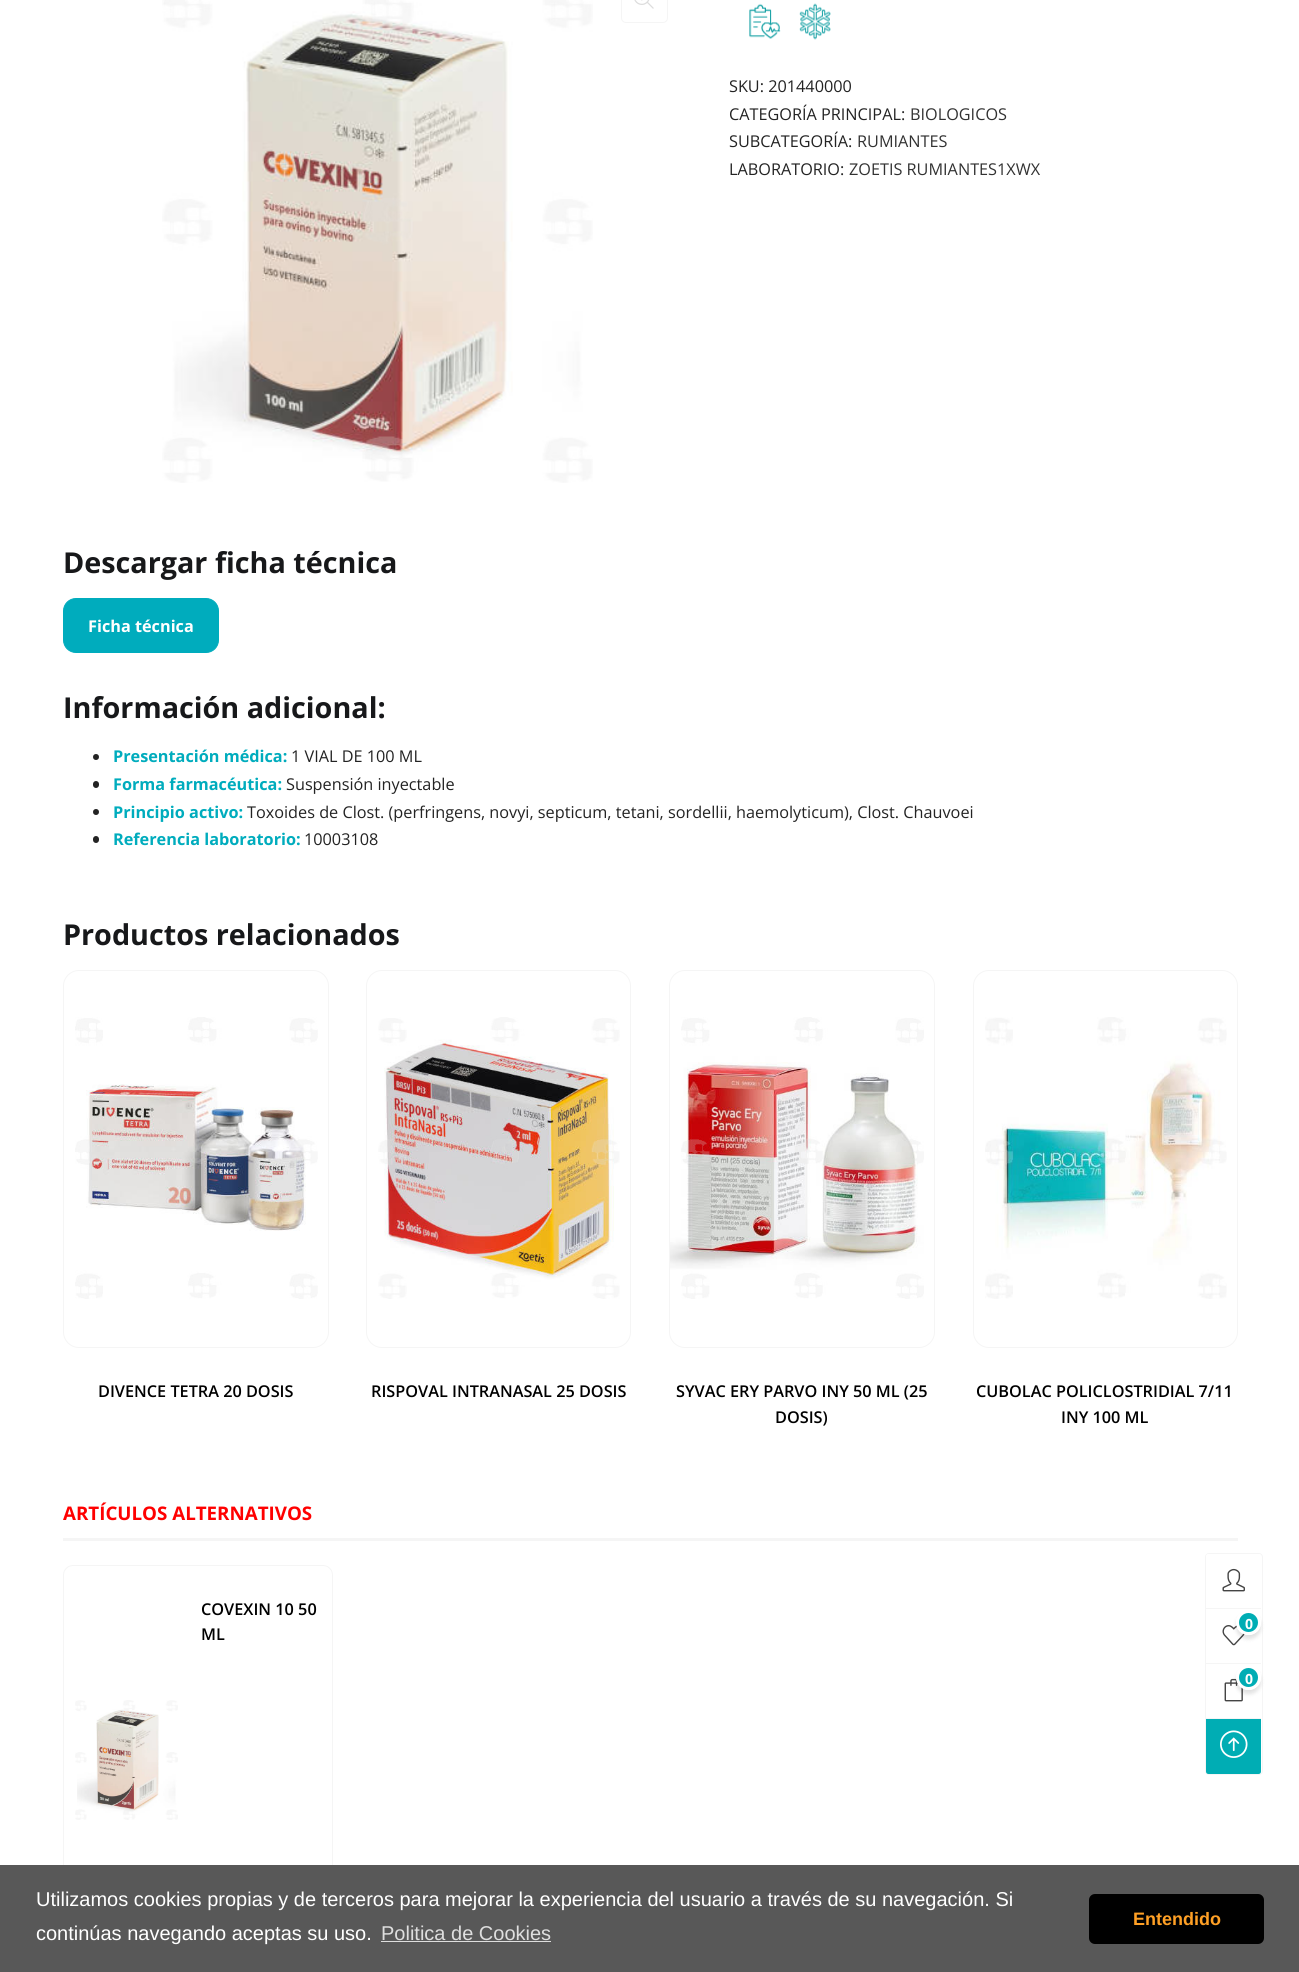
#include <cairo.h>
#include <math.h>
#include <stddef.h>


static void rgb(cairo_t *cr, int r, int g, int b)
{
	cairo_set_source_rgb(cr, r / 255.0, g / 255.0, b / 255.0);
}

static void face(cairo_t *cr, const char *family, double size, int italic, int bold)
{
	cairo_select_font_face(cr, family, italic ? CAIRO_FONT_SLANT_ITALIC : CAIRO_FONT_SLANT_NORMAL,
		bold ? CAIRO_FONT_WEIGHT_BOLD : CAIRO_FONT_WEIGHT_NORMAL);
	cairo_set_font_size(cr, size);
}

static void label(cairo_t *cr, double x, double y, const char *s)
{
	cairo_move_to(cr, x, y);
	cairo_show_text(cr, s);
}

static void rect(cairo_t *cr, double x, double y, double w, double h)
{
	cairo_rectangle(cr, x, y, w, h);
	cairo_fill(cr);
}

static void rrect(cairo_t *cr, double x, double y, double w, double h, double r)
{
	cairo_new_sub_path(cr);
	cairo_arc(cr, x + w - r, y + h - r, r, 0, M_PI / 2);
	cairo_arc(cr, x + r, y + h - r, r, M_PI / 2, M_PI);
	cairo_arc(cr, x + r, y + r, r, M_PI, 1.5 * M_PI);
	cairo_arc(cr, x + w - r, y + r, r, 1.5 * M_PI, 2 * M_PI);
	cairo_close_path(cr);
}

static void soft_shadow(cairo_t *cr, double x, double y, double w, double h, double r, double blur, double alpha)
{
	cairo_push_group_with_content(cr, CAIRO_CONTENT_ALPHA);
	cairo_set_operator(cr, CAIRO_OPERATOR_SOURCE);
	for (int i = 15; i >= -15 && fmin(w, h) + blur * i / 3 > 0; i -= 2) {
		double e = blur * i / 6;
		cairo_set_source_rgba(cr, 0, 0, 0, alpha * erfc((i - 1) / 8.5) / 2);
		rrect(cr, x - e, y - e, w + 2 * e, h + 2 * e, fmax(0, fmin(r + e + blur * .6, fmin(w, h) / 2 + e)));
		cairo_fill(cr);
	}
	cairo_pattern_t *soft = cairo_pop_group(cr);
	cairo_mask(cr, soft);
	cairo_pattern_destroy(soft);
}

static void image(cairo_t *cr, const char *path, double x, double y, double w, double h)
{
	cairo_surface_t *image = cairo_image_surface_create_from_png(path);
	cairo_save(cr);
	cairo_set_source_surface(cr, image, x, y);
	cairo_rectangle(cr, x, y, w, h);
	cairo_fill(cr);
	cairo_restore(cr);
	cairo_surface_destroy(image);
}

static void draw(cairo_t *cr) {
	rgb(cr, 255, 255, 255);
	cairo_paint(cr);
	image(cr, "image0.png", 162, 0, 431, 483);
	rrect(cr, 621.5, -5.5, 46, 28, 4.5);
	rgb(cr, 245, 245, 245);
	cairo_set_line_width(cr, 1);
	cairo_stroke(cr);
	image(cr, "image1.png", 634, 0, 20, 9);
	image(cr, "image2.png", 749, 3, 32, 36);
	image(cr, "image3.png", 799, 3, 32, 37);
	face(cr, "Open Sans", 16.25, 0, 0);
	rgb(cr, 35, 35, 35);
	label(cr, 729, 92, "SKU: 201440000");
	label(cr, 729, 120, "CATEGORÍA PRINCIPAL:");
	rgb(cr, 50, 50, 50);
	label(cr, 910, 120, "BIOLOGICOS");
	rgb(cr, 35, 35, 35);
	label(cr, 729, 147, "SUBCATEGORÍA:");
	rgb(cr, 50, 50, 50);
	label(cr, 857, 147, "RUMIANTES");
	rgb(cr, 35, 35, 35);
	label(cr, 729, 175, "LABORATORIO:");
	rgb(cr, 50, 50, 50);
	label(cr, 849, 175, "ZOETIS RUMIANTES1XWX");
	face(cr, "Open Sans", 28.75, 0, 1);
	rgb(cr, 23, 24, 26);
	label(cr, 63, 573, "Descargar ficha técnica");
	rgb(cr, 0, 172, 189);
	rrect(cr, 63.5, 598.5, 155, 54, 12.5);
	cairo_fill_preserve(cr);
	cairo_stroke(cr);
	face(cr, "Open Sans", 16.25, 0, 1);
	rgb(cr, 255, 255, 255);
	label(cr, 88, 632, "Ficha técnica");
	face(cr, "Open Sans", 28.75, 0, 1);
	rgb(cr, 23, 24, 26);
	label(cr, 63, 718, "Información adicional:");
	rgb(cr, 35, 35, 35);
	cairo_new_path(cr);
	cairo_arc(cr, 96, 757, 3, 0, 2 * M_PI);
	cairo_fill(cr);
	face(cr, "Open Sans", 16.25, 0, 1);
	rgb(cr, 0, 172, 189);
	label(cr, 113, 762, "Presentación médica:");
	face(cr, "Open Sans", 16.25, 0, 0);
	rgb(cr, 35, 35, 35);
	label(cr, 291, 762, "1 VIAL DE 100 ML");
	rrect(cr, 93, 781, 6, 7, 3);
	cairo_fill(cr);
	face(cr, "Open Sans", 16.25, 0, 1);
	rgb(cr, 0, 172, 189);
	label(cr, 113, 790, "Forma farmacéutica:");
	face(cr, "Open Sans", 16.25, 0, 0);
	rgb(cr, 35, 35, 35);
	label(cr, 286, 790, "Suspensión inyectable");
	cairo_new_path(cr);
	cairo_arc(cr, 96, 812, 3, 0, 2 * M_PI);
	cairo_fill(cr);
	face(cr, "Open Sans", 16.25, 0, 1);
	rgb(cr, 0, 172, 189);
	label(cr, 113, 818, "Principio activo:");
	face(cr, "Open Sans", 16.25, 0, 0);
	rgb(cr, 35, 35, 35);
	label(cr, 247, 818, "Toxoides de Clost. (perfringens, novyi, septicum, tetani, sordellii, haemolyticum), Clost. Chauvoei");
	rrect(cr, 93, 836, 6, 7, 3);
	cairo_fill(cr);
	face(cr, "Open Sans", 16.25, 0, 1);
	rgb(cr, 0, 172, 189);
	label(cr, 113, 845, "Referencia laboratorio:");
	face(cr, "Open Sans", 16.25, 0, 0);
	rgb(cr, 35, 35, 35);
	label(cr, 304, 845, "10003108");
	face(cr, "Open Sans", 28.75, 0, 1);
	rgb(cr, 23, 24, 26);
	label(cr, 63, 945, "Productos relacionados");
	rrect(cr, 63.5, 970.5, 265, 377, 15.5);
	rgb(cr, 245, 245, 245);
	cairo_stroke(cr);
	image(cr, "image4.png", 75, 1017, 243, 282);
	face(cr, "Open Sans SemiBold", 16.25, 0, 0);
	rgb(cr, 0, 0, 0);
	label(cr, 98, 1397, "DIVENCE TETRA 20 DOSIS");
	rrect(cr, 366.5, 970.5, 264, 377, 15.5);
	rgb(cr, 245, 245, 245);
	cairo_stroke(cr);
	image(cr, "image5.png", 378, 1017, 242, 282);
	rgb(cr, 0, 0, 0);
	label(cr, 371, 1397, "RISPOVAL INTRANASAL 25 DOSIS");
	rrect(cr, 669.5, 970.5, 265, 377, 15.5);
	rgb(cr, 245, 245, 245);
	cairo_stroke(cr);
	image(cr, "image6.png", 670, 1017, 254, 282);
	rgb(cr, 0, 0, 0);
	label(cr, 676, 1397, "SYVAC ERY PARVO INY 50 ML (25");
	label(cr, 775, 1423, "DOSIS)");
	rrect(cr, 973.5, 970.5, 264, 377, 15.5);
	rgb(cr, 245, 245, 245);
	cairo_stroke(cr);
	image(cr, "image7.png", 985, 1017, 242, 282);
	rgb(cr, 0, 0, 0);
	label(cr, 976, 1397, "CUBOLAC POLICLOSTRIDIAL 7/11");
	label(cr, 1061, 1423, "INY 100 ML");
	rgb(cr, 245, 245, 245);
	rect(cr, 63, 1538, 1175, 3);
	face(cr, "Open Sans", 18.75, 0, 1);
	rgb(cr, 255, 0, 0);
	label(cr, 63, 1520, "ARTÍCULOS ALTERNATIVOS");
	rrect(cr, 63.5, 1565.5, 269, 389, 9.5);
	rgb(cr, 245, 245, 245);
	cairo_stroke(cr);
	face(cr, "Open Sans SemiBold", 16.25, 0, 0);
	rgb(cr, 0, 0, 0);
	label(cr, 201, 1615, "COVEXIN 10 50");
	label(cr, 201, 1640, "ML");
	image(cr, "image8.png", 75, 1700, 103, 120);
	rrect(cr, 1205.5, 1553.5, 57, 221, 3.5);
	rgb(cr, 245, 245, 245);
	cairo_stroke(cr);
	rgb(cr, 255, 255, 255);
	cairo_new_path(cr);
	cairo_move_to(cr, 1208.5, 1554);
	cairo_line_to(cr, 1258.5, 1554);
	cairo_curve_to(cr, 1260, 1554, 1261, 1555, 1261, 1556.5);
	cairo_line_to(cr, 1261, 1609);
	cairo_line_to(cr, 1206, 1609);
	cairo_line_to(cr, 1206, 1556.5);
	cairo_curve_to(cr, 1206, 1555, 1207, 1554, 1208.5, 1554);
	cairo_close_path(cr);
	cairo_fill(cr);
	rgb(cr, 245, 245, 245);
	rect(cr, 1206, 1608, 55, 1);
	image(cr, "image9.png", 1222, 1568, 23, 24);
	rect(cr, 1206, 1663, 55, 1);
	image(cr, "image10.png", 1222, 1625, 23, 21);
	cairo_save(cr);
	cairo_set_fill_rule(cr, CAIRO_FILL_RULE_EVEN_ODD);
	cairo_new_path(cr);
	cairo_move_to(cr, 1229, 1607);
	cairo_line_to(cr, 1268, 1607);
	cairo_line_to(cr, 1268, 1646);
	cairo_line_to(cr, 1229, 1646);
	cairo_close_path(cr);
	cairo_move_to(cr, 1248.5, 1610);
	cairo_curve_to(cr, 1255.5, 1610, 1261, 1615.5, 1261, 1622.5);
	cairo_curve_to(cr, 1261, 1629.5, 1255.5, 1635, 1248.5, 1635);
	cairo_curve_to(cr, 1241.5, 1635, 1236, 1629.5, 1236, 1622.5);
	cairo_curve_to(cr, 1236, 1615.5, 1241.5, 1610, 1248.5, 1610);
	cairo_close_path(cr);
	cairo_clip(cr);
	rgb(cr, 0, 0, 0);
	soft_shadow(cr, 1236, 1614, 25, 25, 12.5, 2, 0.12);
	cairo_restore(cr);
	rgb(cr, 0, 173, 180);
	cairo_arc(cr, 1248.5, 1622.5, 11, 0, 2 * M_PI);
	cairo_fill_preserve(cr);
	rgb(cr, 255, 255, 255);
	cairo_set_line_width(cr, 3);
	cairo_stroke(cr);
	face(cr, "Open Sans", 14, 0, 1);
	label(cr, 1245, 1629, "0");
	rgb(cr, 245, 245, 245);
	rect(cr, 1206, 1718, 55, 1);
	image(cr, "image11.png", 1224, 1678, 19, 24);
	cairo_save(cr);
	cairo_set_fill_rule(cr, CAIRO_FILL_RULE_EVEN_ODD);
	cairo_new_path(cr);
	cairo_move_to(cr, 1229, 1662);
	cairo_line_to(cr, 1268, 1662);
	cairo_line_to(cr, 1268, 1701);
	cairo_line_to(cr, 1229, 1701);
	cairo_close_path(cr);
	cairo_move_to(cr, 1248.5, 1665);
	cairo_curve_to(cr, 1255.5, 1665, 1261, 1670.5, 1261, 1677.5);
	cairo_curve_to(cr, 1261, 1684.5, 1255.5, 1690, 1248.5, 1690);
	cairo_curve_to(cr, 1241.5, 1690, 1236, 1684.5, 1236, 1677.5);
	cairo_curve_to(cr, 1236, 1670.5, 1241.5, 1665, 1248.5, 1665);
	cairo_close_path(cr);
	cairo_clip(cr);
	rgb(cr, 0, 0, 0);
	soft_shadow(cr, 1236, 1669, 25, 25, 12.5, 2, 0.12);
	cairo_restore(cr);
	rgb(cr, 0, 173, 180);
	cairo_arc(cr, 1248.5, 1677.5, 11, 0, 2 * M_PI);
	cairo_fill_preserve(cr);
	rgb(cr, 255, 255, 255);
	cairo_stroke(cr);
	label(cr, 1245, 1684, "0");
	rgb(cr, 0, 173, 180);
	cairo_new_path(cr);
	cairo_move_to(cr, 1206, 1719);
	cairo_line_to(cr, 1261, 1719);
	cairo_line_to(cr, 1261, 1771.5);
	cairo_curve_to(cr, 1261, 1773, 1260, 1774, 1258.5, 1774);
	cairo_line_to(cr, 1208.5, 1774);
	cairo_curve_to(cr, 1207, 1774, 1206, 1773, 1206, 1771.5);
	cairo_close_path(cr);
	cairo_fill(cr);
	image(cr, "image12.png", 1220, 1730, 28, 28);
	rgb(cr, 88, 88, 88);
	rect(cr, 0, 1865, 1299, 107);
	face(cr, "Liberation Sans", 20, 0, 0);
	rgb(cr, 255, 255, 255);
	label(cr, 36, 1906, "Utilizamos cookies propias y de terceros para mejorar la experiencia del usuario a través de su navegación. Si");
	label(cr, 36, 1940, "continúas navegando aceptas su uso.");
	rgb(cr, 222, 222, 222);
	label(cr, 381, 1940, "Politica de Cookies");
	rect(cr, 381, 1941, 170, 1);
	rgb(cr, 0, 0, 0);
	rrect(cr, 1089, 1894, 175, 50, 6);
	cairo_fill(cr);
	face(cr, "Liberation Sans", 18, 0, 1);
	rgb(cr, 255, 160, 37);
	label(cr, 1133, 1925, "Entendido");
}

int main(void) {
	cairo_surface_t *surface = cairo_image_surface_create(CAIRO_FORMAT_RGB24, 1299, 1972);
	cairo_t *cr = cairo_create(surface);
	cairo_font_options_t *options = cairo_font_options_create();
	cairo_font_options_set_hint_metrics(options, CAIRO_HINT_METRICS_OFF);
	cairo_font_options_set_hint_style(options, CAIRO_HINT_STYLE_NONE);
	cairo_set_font_options(cr, options);
	cairo_set_miter_limit(cr, 4);
	draw(cr);
	cairo_surface_write_to_png(surface, "render.png");
	cairo_font_options_destroy(options);
	cairo_destroy(cr);
	cairo_surface_destroy(surface);
	return 0;
}
